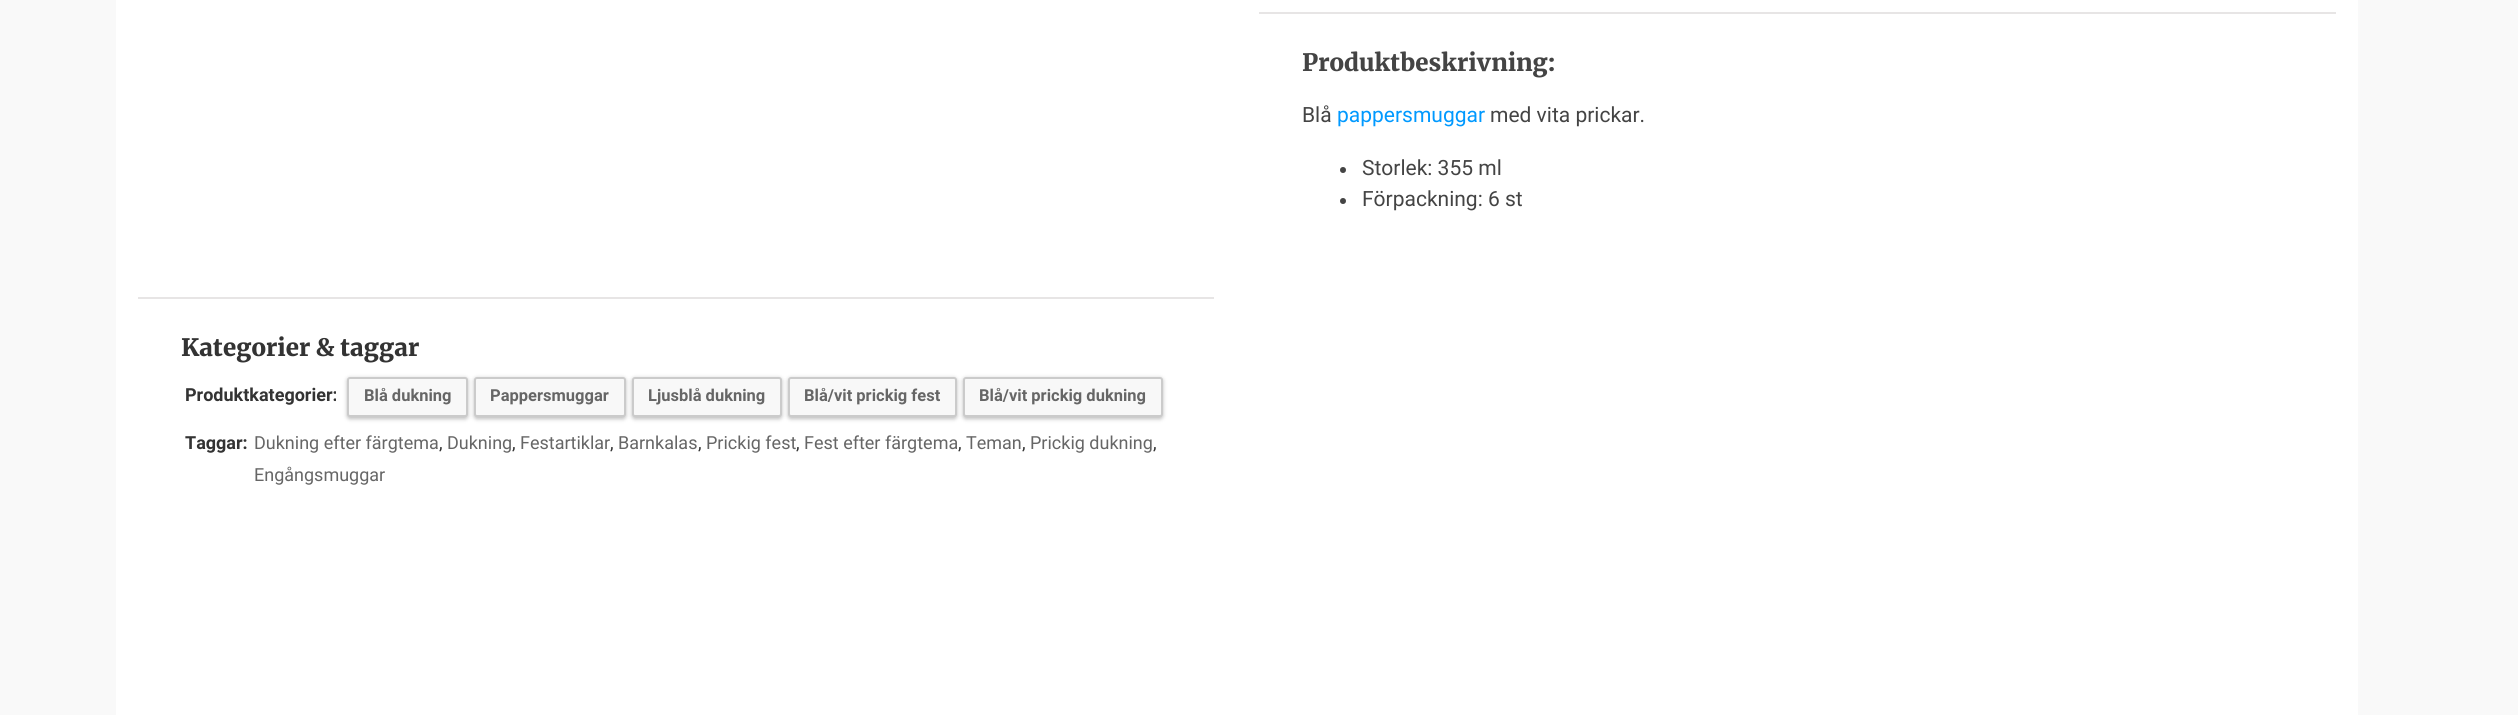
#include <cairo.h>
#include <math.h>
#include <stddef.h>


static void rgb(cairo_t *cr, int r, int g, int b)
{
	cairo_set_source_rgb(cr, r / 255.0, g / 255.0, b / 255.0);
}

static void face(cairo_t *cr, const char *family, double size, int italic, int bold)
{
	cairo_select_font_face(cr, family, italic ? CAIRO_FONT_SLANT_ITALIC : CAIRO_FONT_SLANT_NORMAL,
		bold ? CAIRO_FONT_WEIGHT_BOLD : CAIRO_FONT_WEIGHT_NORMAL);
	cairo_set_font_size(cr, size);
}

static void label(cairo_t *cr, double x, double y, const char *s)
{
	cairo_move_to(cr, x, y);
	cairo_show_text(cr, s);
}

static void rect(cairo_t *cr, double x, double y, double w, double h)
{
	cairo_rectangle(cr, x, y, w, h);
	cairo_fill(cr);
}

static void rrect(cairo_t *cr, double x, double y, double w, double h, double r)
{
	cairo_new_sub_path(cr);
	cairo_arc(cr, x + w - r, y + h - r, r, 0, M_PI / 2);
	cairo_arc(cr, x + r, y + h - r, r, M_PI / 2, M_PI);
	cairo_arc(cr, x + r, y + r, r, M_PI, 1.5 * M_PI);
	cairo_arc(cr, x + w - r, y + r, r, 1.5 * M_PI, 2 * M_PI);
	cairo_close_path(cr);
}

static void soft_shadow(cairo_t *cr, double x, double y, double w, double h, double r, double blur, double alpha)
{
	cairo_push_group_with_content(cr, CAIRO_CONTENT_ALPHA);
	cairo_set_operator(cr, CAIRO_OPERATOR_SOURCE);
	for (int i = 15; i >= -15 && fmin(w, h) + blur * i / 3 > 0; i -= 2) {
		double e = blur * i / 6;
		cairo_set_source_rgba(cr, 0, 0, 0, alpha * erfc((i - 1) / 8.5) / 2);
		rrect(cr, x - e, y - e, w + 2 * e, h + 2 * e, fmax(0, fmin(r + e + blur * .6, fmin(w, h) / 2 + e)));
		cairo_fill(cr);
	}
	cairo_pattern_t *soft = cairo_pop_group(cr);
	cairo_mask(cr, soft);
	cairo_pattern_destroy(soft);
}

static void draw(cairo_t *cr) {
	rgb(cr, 249, 249, 249);
	cairo_paint(cr);
	rgb(cr, 255, 255, 255);
	rect(cr, 116, 0, 2242, 715);
	rgb(cr, 231, 229, 229);
	rect(cr, 1259, 12, 1077, 2);
	face(cr, "Merriweather Black", 24, 0, 0);
	rgb(cr, 68, 68, 68);
	label(cr, 1302, 71, "Produktbeskrivning:");
	face(cr, "Roboto", 21, 0, 0);
	label(cr, 1302, 122, "Blå");
	rgb(cr, 0, 153, 255);
	label(cr, 1337, 122, "pappersmuggar");
	rgb(cr, 68, 68, 68);
	label(cr, 1490, 122, "med vita prickar.");
	cairo_new_path(cr);
	cairo_arc(cr, 1343, 170, 3, 0, 2 * M_PI);
	cairo_fill(cr);
	label(cr, 1362, 175, "Storlek: 355 ml");
	cairo_new_path(cr);
	cairo_arc(cr, 1343, 201, 3, 0, 2 * M_PI);
	cairo_fill(cr);
	label(cr, 1362, 206, "Förpackning: 6 st");
	rgb(cr, 231, 229, 229);
	rect(cr, 138, 297, 1076, 2);
	face(cr, "Merriweather Black", 24, 0, 0);
	rgb(cr, 51, 51, 51);
	label(cr, 181, 356, "Kategorier & taggar");
	face(cr, "Roboto", 18, 0, 1);
	label(cr, 185, 401, "Produktkategorier:");
	rgb(cr, 191, 191, 191);
	soft_shadow(cr, 347, 378, 121, 41, 3, 2, 1);
	rgb(cr, 248, 248, 248);
	rrect(cr, 348, 378, 119, 38, 2);
	cairo_fill_preserve(cr);
	rgb(cr, 203, 203, 203);
	cairo_stroke(cr);
	face(cr, "Roboto", 16.5, 0, 1);
	rgb(cr, 102, 102, 102);
	label(cr, 364, 401, "Blå dukning");
	rgb(cr, 191, 191, 191);
	soft_shadow(cr, 474, 378, 152, 41, 3, 2, 1);
	rgb(cr, 248, 248, 248);
	rrect(cr, 475, 378, 150, 38, 2);
	cairo_fill_preserve(cr);
	rgb(cr, 203, 203, 203);
	cairo_stroke(cr);
	rgb(cr, 102, 102, 102);
	label(cr, 490, 401, "Pappersmuggar");
	rgb(cr, 191, 191, 191);
	soft_shadow(cr, 632, 378, 150, 41, 3, 2, 1);
	rgb(cr, 248, 248, 248);
	rrect(cr, 633, 378, 148, 38, 2);
	cairo_fill_preserve(cr);
	rgb(cr, 203, 203, 203);
	cairo_stroke(cr);
	rgb(cr, 102, 102, 102);
	label(cr, 648, 401, "Ljusblå dukning");
	rgb(cr, 191, 191, 191);
	soft_shadow(cr, 788, 378, 169, 41, 3, 2, 1);
	rgb(cr, 248, 248, 248);
	rrect(cr, 789, 378, 167, 38, 2);
	cairo_fill_preserve(cr);
	rgb(cr, 203, 203, 203);
	cairo_stroke(cr);
	rgb(cr, 102, 102, 102);
	label(cr, 804, 401, "Blå/vit prickig fest");
	rgb(cr, 191, 191, 191);
	soft_shadow(cr, 963, 378, 200, 41, 3, 2, 1);
	rgb(cr, 248, 248, 248);
	rrect(cr, 964, 378, 198, 38, 2);
	cairo_fill_preserve(cr);
	rgb(cr, 203, 203, 203);
	cairo_stroke(cr);
	rgb(cr, 102, 102, 102);
	label(cr, 979, 401, "Blå/vit prickig dukning");
	face(cr, "Roboto", 18, 0, 1);
	rgb(cr, 51, 51, 51);
	label(cr, 185, 449, "Taggar:");
	face(cr, "Roboto", 18, 0, 0);
	rgb(cr, 102, 102, 102);
	label(cr, 254, 449, "Dukning efter färgtema");
	rgb(cr, 51, 51, 51);
	label(cr, 439, 449, ",");
	rgb(cr, 102, 102, 102);
	label(cr, 447, 449, "Dukning");
	rgb(cr, 51, 51, 51);
	label(cr, 512, 449, ",");
	rgb(cr, 102, 102, 102);
	label(cr, 520, 449, "Festartiklar");
	rgb(cr, 51, 51, 51);
	label(cr, 610, 449, ",");
	rgb(cr, 102, 102, 102);
	label(cr, 618, 449, "Barnkalas");
	rgb(cr, 51, 51, 51);
	label(cr, 698, 449, ",");
	rgb(cr, 102, 102, 102);
	label(cr, 706, 449, "Prickig fest");
	rgb(cr, 51, 51, 51);
	label(cr, 796, 449, ",");
	rgb(cr, 102, 102, 102);
	label(cr, 804, 449, "Fest efter färgtema");
	rgb(cr, 51, 51, 51);
	label(cr, 958, 449, ",");
	rgb(cr, 102, 102, 102);
	label(cr, 966, 449, "Teman");
	rgb(cr, 51, 51, 51);
	label(cr, 1022, 449, ",");
	rgb(cr, 102, 102, 102);
	label(cr, 1030, 449, "Prickig dukning");
	rgb(cr, 51, 51, 51);
	label(cr, 1153, 449, ",");
	rgb(cr, 102, 102, 102);
	label(cr, 254, 481, "Engångsmuggar");
}

int main(void) {
	cairo_surface_t *surface = cairo_image_surface_create(CAIRO_FORMAT_RGB24, 2518, 715);
	cairo_t *cr = cairo_create(surface);
	cairo_font_options_t *options = cairo_font_options_create();
	cairo_font_options_set_hint_metrics(options, CAIRO_HINT_METRICS_OFF);
	cairo_font_options_set_hint_style(options, CAIRO_HINT_STYLE_NONE);
	cairo_set_font_options(cr, options);
	cairo_set_miter_limit(cr, 4);
	draw(cr);
	cairo_surface_write_to_png(surface, "render.png");
	cairo_font_options_destroy(options);
	cairo_destroy(cr);
	cairo_surface_destroy(surface);
	return 0;
}
